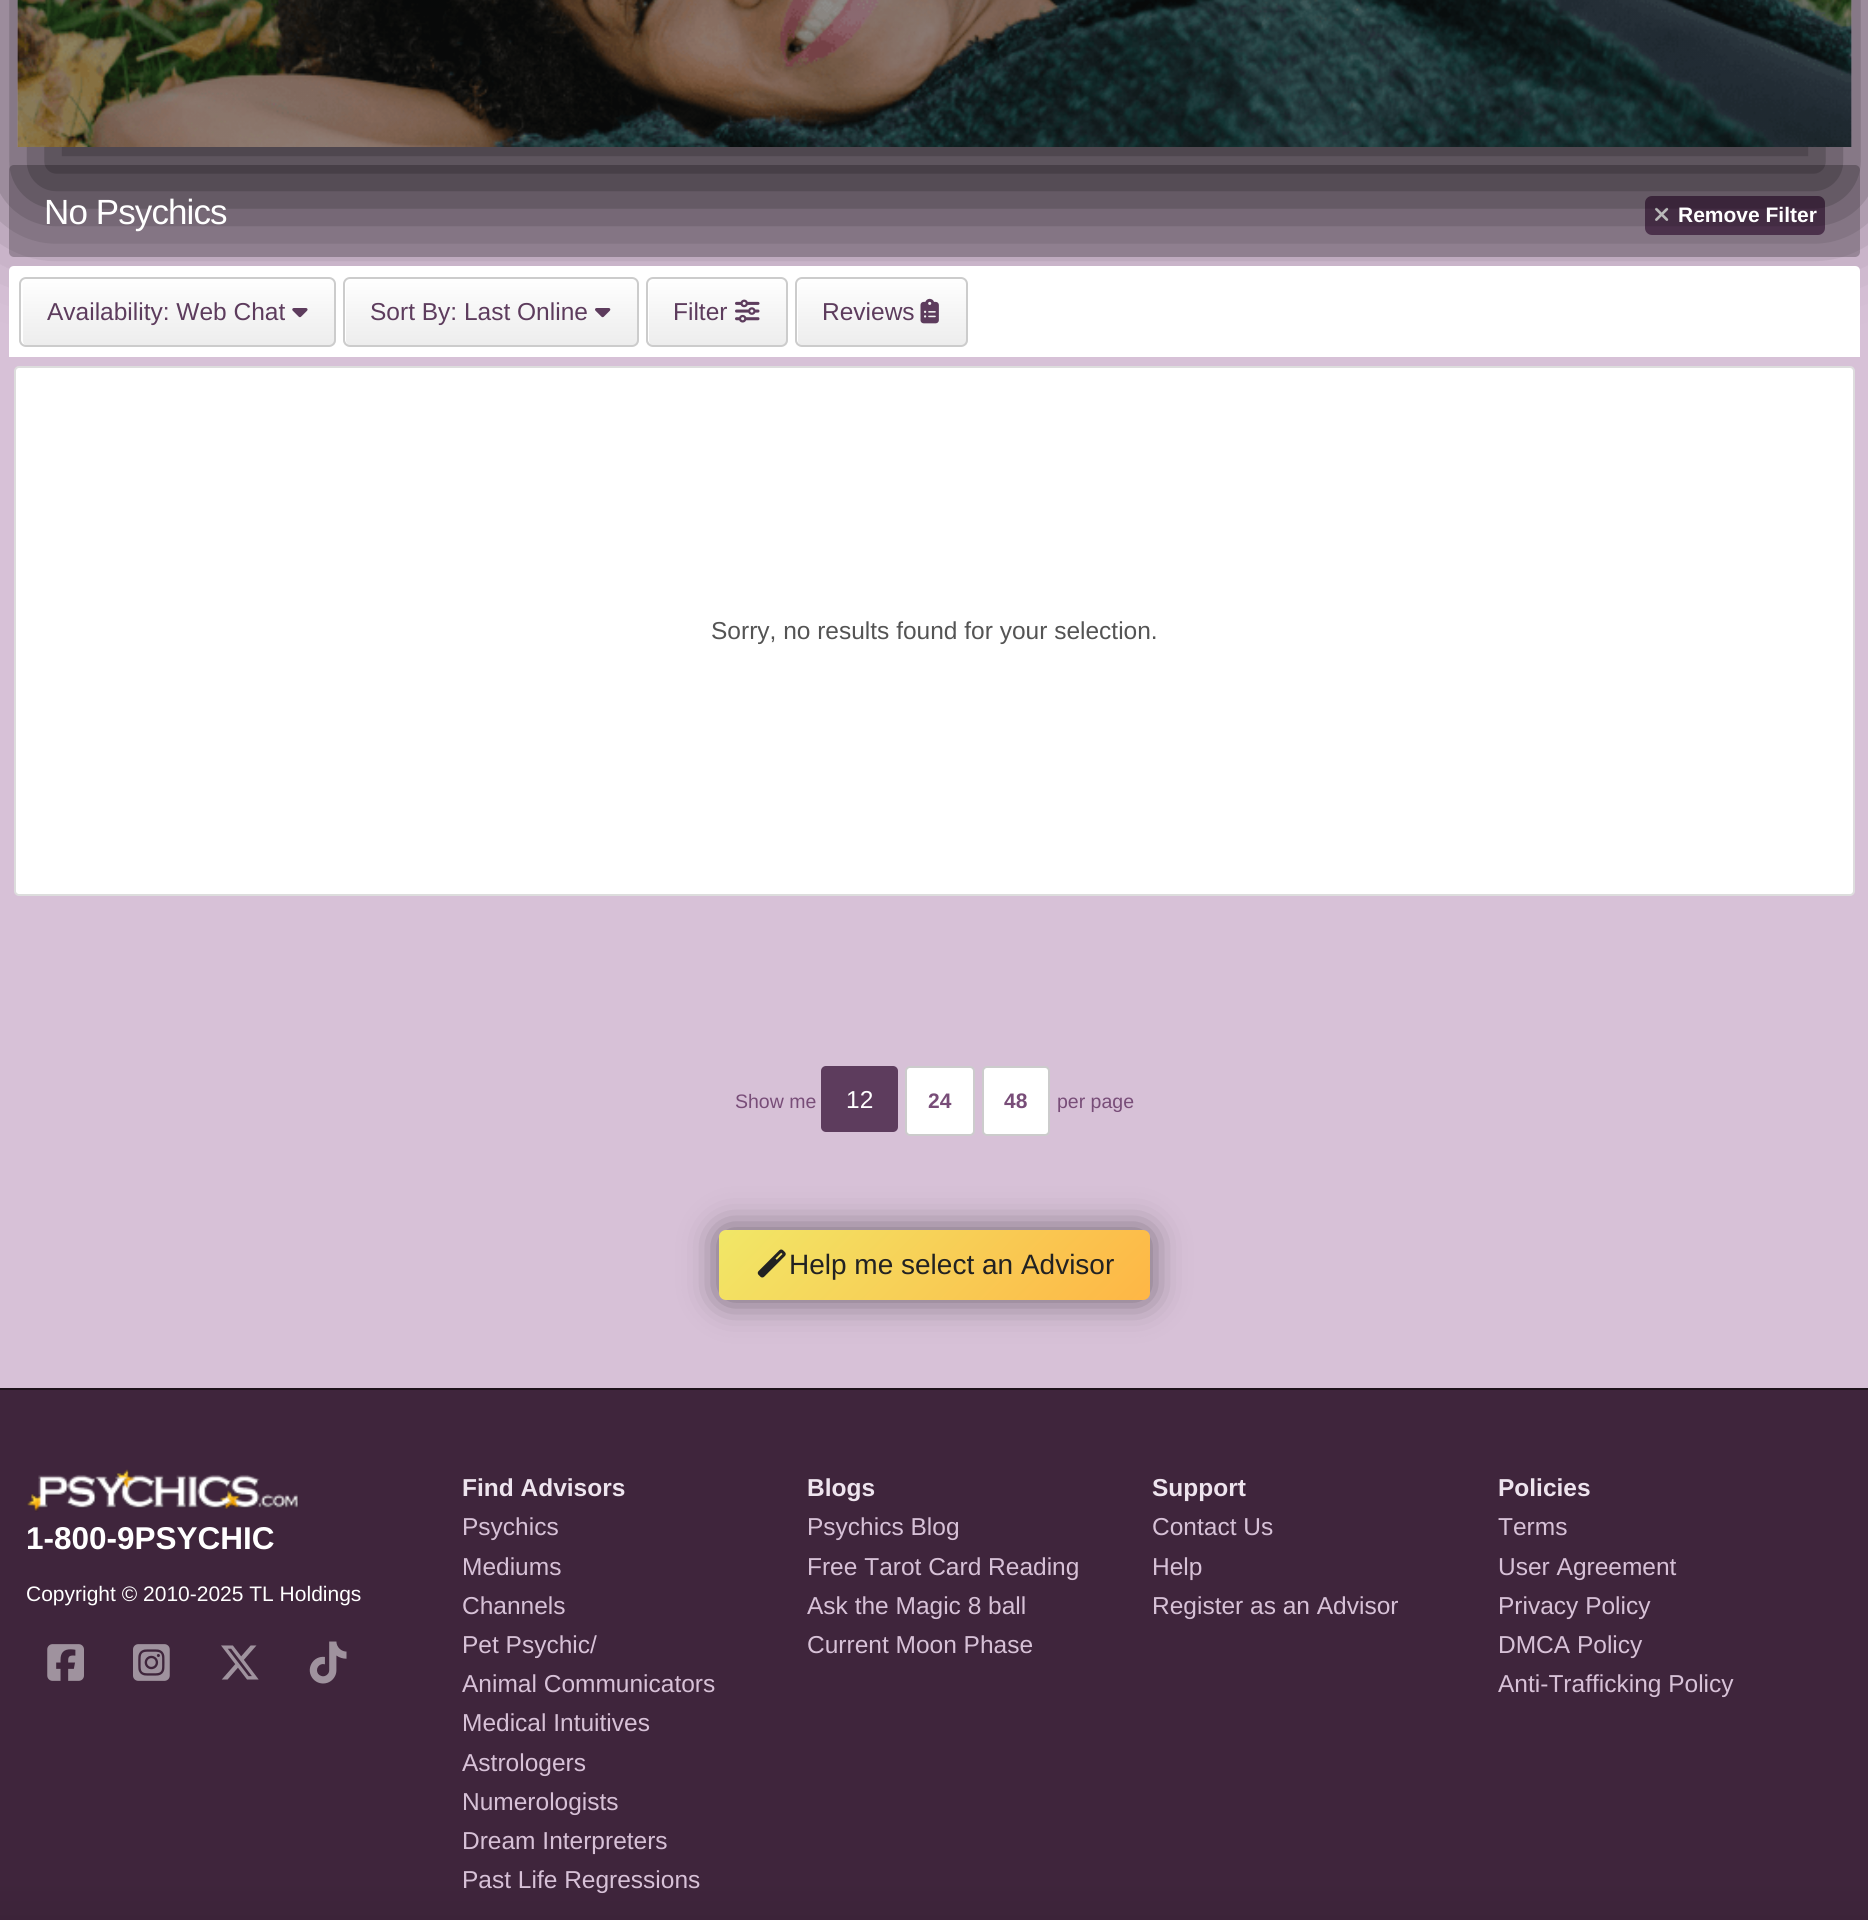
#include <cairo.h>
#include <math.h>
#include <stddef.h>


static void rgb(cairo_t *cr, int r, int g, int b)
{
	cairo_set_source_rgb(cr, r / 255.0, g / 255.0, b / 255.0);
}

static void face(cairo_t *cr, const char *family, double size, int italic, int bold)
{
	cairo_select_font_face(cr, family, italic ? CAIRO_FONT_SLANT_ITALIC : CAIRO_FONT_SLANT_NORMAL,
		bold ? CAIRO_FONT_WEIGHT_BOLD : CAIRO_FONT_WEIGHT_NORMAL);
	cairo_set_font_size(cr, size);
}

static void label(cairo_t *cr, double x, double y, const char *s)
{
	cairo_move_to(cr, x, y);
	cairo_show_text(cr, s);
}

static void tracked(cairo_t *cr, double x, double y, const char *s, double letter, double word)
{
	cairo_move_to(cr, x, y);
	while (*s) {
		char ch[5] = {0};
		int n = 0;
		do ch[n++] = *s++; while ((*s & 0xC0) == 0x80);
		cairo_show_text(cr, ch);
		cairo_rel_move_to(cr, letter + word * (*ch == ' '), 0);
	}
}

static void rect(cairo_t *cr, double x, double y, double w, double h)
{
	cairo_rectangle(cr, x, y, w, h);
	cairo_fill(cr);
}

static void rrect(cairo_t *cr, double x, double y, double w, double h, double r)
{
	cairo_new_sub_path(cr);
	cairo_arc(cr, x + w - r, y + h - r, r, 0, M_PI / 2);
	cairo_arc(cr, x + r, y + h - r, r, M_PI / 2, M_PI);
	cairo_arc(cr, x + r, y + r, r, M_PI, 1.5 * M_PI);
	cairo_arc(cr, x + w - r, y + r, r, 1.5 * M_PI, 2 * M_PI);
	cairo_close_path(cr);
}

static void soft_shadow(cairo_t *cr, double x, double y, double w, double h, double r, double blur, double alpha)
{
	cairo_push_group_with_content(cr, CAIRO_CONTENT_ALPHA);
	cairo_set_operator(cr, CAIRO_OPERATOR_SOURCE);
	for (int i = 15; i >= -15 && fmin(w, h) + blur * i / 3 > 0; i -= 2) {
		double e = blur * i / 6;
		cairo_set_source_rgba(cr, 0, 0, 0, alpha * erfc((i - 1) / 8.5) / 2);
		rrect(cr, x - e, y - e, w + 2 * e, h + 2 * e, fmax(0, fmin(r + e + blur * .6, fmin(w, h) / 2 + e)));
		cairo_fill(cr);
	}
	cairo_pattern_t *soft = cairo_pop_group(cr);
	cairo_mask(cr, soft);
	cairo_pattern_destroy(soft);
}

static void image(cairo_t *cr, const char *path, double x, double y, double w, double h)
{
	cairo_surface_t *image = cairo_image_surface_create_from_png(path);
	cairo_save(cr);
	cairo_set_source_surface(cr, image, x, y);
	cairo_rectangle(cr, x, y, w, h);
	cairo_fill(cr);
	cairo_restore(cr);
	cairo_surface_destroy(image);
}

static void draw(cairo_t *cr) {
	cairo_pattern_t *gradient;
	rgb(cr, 215, 193, 215);
	cairo_paint(cr);
	rgb(cr, 162, 144, 162);
	rrect(cr, 9, 165, 1851, 92, 5);
	cairo_fill(cr);
	rgb(cr, 93, 60, 93);
	rrect(cr, 1645, 196, 180, 39, 7);
	cairo_fill(cr);
	image(cr, "image1.png", 1655, 207, 14, 14);
	rgb(cr, 0, 0, 0);
	soft_shadow(cr, 18, -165, 1834, 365, 7, 52.5, 0.75);
	image(cr, "image0.png", 17, 0, 1835, 147);
	face(cr, "Liberation Sans", 35, 0, 0);
	rgb(cr, 255, 255, 255);
	tracked(cr, 44, 224, "No Psychics", -0.9, 0);
	face(cr, "Liberation Sans", 21, 0, 1);
	label(cr, 1678, 222, "Remove Filter");
	cairo_new_path(cr);
	cairo_move_to(cr, 14, 266);
	cairo_line_to(cr, 1855, 266);
	cairo_curve_to(cr, 1858, 266, 1860, 268, 1860, 271);
	cairo_line_to(cr, 1860, 357);
	cairo_line_to(cr, 9, 357);
	cairo_line_to(cr, 9, 271);
	cairo_curve_to(cr, 9, 268, 11, 266, 14, 266);
	cairo_close_path(cr);
	cairo_fill(cr);
	cairo_save(cr);
	rrect(cr, 19, 277, 317, 70, 7);
	cairo_clip(cr);
	gradient = cairo_pattern_create_linear(178, 278, 178, 345);
	cairo_pattern_add_color_stop_rgba(gradient, 0, 1, 1, 1, 1);
	cairo_pattern_add_color_stop_rgba(gradient, 0.47, 0.965, 0.965, 0.965, 1);
	cairo_pattern_add_color_stop_rgba(gradient, 1, 0.929, 0.929, 0.929, 1);
	cairo_set_source(cr, gradient);
	cairo_pattern_destroy(gradient);
	rect(cr, 19, 278, 317, 67);
	cairo_restore(cr);
	cairo_new_path(cr);
	cairo_move_to(cr, 28, 280);
	cairo_line_to(cr, 331, 280);
	cairo_line_to(cr, 333, 280);
	cairo_curve_to(cr, 332, 279, 331, 278, 329, 278);
	cairo_line_to(cr, 26, 278);
	cairo_curve_to(cr, 23, 278, 21, 280, 21, 283);
	cairo_line_to(cr, 21, 340);
	cairo_curve_to(cr, 21, 342, 22, 344, 25, 345);
	cairo_curve_to(cr, 24, 344, 23, 343, 23, 341);
	cairo_line_to(cr, 23, 285);
	cairo_curve_to(cr, 23, 282, 25, 280, 28, 280);
	cairo_close_path(cr);
	cairo_fill(cr);
	rrect(cr, 20, 278, 315, 68, 6);
	rgb(cr, 204, 204, 204);
	cairo_stroke(cr);
	face(cr, "Liberation Sans", 24.5, 0, 0);
	rgb(cr, 93, 60, 93);
	label(cr, 47, 320, "Availability: Web Chat");
	image(cr, "image2.png", 292, 308, 16, 10);
	cairo_save(cr);
	rrect(cr, 343, 277, 296, 70, 7);
	cairo_clip(cr);
	gradient = cairo_pattern_create_linear(491, 278, 491, 345);
	cairo_pattern_add_color_stop_rgba(gradient, 0, 1, 1, 1, 1);
	cairo_pattern_add_color_stop_rgba(gradient, 0.47, 0.965, 0.965, 0.965, 1);
	cairo_pattern_add_color_stop_rgba(gradient, 1, 0.929, 0.929, 0.929, 1);
	cairo_set_source(cr, gradient);
	cairo_pattern_destroy(gradient);
	rect(cr, 343, 278, 296, 67);
	cairo_restore(cr);
	rgb(cr, 255, 255, 255);
	cairo_new_path(cr);
	cairo_move_to(cr, 352, 280);
	cairo_line_to(cr, 634, 280);
	cairo_line_to(cr, 636, 281);
	cairo_curve_to(cr, 636, 279, 634, 278, 632, 278);
	cairo_line_to(cr, 350, 278);
	cairo_curve_to(cr, 347, 278, 345, 280, 345, 283);
	cairo_line_to(cr, 345, 340);
	cairo_curve_to(cr, 345, 342, 346, 344, 348, 344);
	cairo_curve_to(cr, 347, 344, 346, 342, 346, 341);
	cairo_line_to(cr, 346, 285);
	cairo_curve_to(cr, 346, 282, 349, 280, 352, 280);
	cairo_close_path(cr);
	cairo_fill(cr);
	rrect(cr, 344, 278, 294, 68, 6);
	rgb(cr, 204, 204, 204);
	cairo_stroke(cr);
	rgb(cr, 93, 60, 93);
	label(cr, 370, 320, "Sort By: Last Online");
	image(cr, "image3.png", 595, 308, 16, 10);
	cairo_save(cr);
	rrect(cr, 646, 277, 142, 70, 7);
	cairo_clip(cr);
	gradient = cairo_pattern_create_linear(717, 278, 717, 345);
	cairo_pattern_add_color_stop_rgba(gradient, 0, 1, 1, 1, 1);
	cairo_pattern_add_color_stop_rgba(gradient, 0.47, 0.965, 0.965, 0.965, 1);
	cairo_pattern_add_color_stop_rgba(gradient, 1, 0.929, 0.929, 0.929, 1);
	cairo_set_source(cr, gradient);
	cairo_pattern_destroy(gradient);
	rect(cr, 646, 278, 142, 67);
	cairo_restore(cr);
	rgb(cr, 255, 255, 255);
	cairo_new_path(cr);
	cairo_move_to(cr, 654, 280);
	cairo_line_to(cr, 782, 280);
	cairo_line_to(cr, 786, 281);
	cairo_curve_to(cr, 785, 279, 783, 278, 781, 278);
	cairo_line_to(cr, 653, 278);
	cairo_curve_to(cr, 650, 278, 648, 280, 648, 283);
	cairo_line_to(cr, 648, 340);
	cairo_curve_to(cr, 648, 342, 649, 343, 650, 344);
	cairo_curve_to(cr, 650, 343, 649, 342, 649, 341);
	cairo_line_to(cr, 649, 285);
	cairo_curve_to(cr, 649, 282, 652, 280, 654, 280);
	cairo_close_path(cr);
	cairo_fill(cr);
	rrect(cr, 647, 278, 140, 68, 6);
	rgb(cr, 204, 204, 204);
	cairo_stroke(cr);
	rgb(cr, 93, 60, 93);
	label(cr, 673, 320, "Filter");
	image(cr, "image4.png", 735, 299, 25, 24);
	cairo_save(cr);
	rrect(cr, 795, 277, 173, 70, 7);
	cairo_clip(cr);
	gradient = cairo_pattern_create_linear(881, 278, 881, 345);
	cairo_pattern_add_color_stop_rgba(gradient, 0, 1, 1, 1, 1);
	cairo_pattern_add_color_stop_rgba(gradient, 0.47, 0.965, 0.965, 0.965, 1);
	cairo_pattern_add_color_stop_rgba(gradient, 1, 0.929, 0.929, 0.929, 1);
	cairo_set_source(cr, gradient);
	cairo_pattern_destroy(gradient);
	rect(cr, 795, 278, 173, 67);
	cairo_restore(cr);
	rgb(cr, 255, 255, 255);
	cairo_new_path(cr);
	cairo_move_to(cr, 803, 280);
	cairo_line_to(cr, 962, 280);
	cairo_line_to(cr, 966, 281);
	cairo_curve_to(cr, 965, 279, 963, 278, 961, 278);
	cairo_line_to(cr, 801, 278);
	cairo_curve_to(cr, 798, 278, 796, 280, 796, 283);
	cairo_line_to(cr, 796, 340);
	cairo_curve_to(cr, 796, 342, 797, 344, 800, 345);
	cairo_curve_to(cr, 799, 344, 798, 343, 798, 341);
	cairo_line_to(cr, 798, 285);
	cairo_curve_to(cr, 798, 282, 800, 280, 803, 280);
	cairo_close_path(cr);
	cairo_fill(cr);
	rrect(cr, 796, 278, 171, 68, 6);
	rgb(cr, 204, 204, 204);
	cairo_stroke(cr);
	rgb(cr, 93, 60, 93);
	label(cr, 822, 320, "Reviews");
	image(cr, "image5.png", 920, 298, 19, 26);
	rgb(cr, 255, 255, 255);
	rrect(cr, 15, 367, 1839, 528, 4);
	cairo_fill_preserve(cr);
	rgb(cr, 221, 221, 221);
	cairo_stroke(cr);
	rgb(cr, 84, 84, 84);
	label(cr, 711, 639, "Sorry, no results found for your selection.");
	face(cr, "Liberation Sans", 19.5, 0, 0);
	rgb(cr, 120, 77, 120);
	label(cr, 735, 1108, "Show me");
	rgb(cr, 93, 60, 93);
	rrect(cr, 821, 1066, 77, 66, 5);
	cairo_fill(cr);
	face(cr, "Liberation Sans", 24.5, 0, 0);
	rgb(cr, 255, 255, 255);
	label(cr, 846, 1108, "12");
	rrect(cr, 906, 1067, 68, 68, 4);
	cairo_fill_preserve(cr);
	rgb(cr, 204, 204, 204);
	cairo_stroke(cr);
	face(cr, "Liberation Sans", 21, 0, 1);
	rgb(cr, 120, 77, 120);
	label(cr, 928, 1108, "24");
	rgb(cr, 255, 255, 255);
	rrect(cr, 983, 1067, 66, 68, 4);
	cairo_fill_preserve(cr);
	rgb(cr, 204, 204, 204);
	cairo_stroke(cr);
	rgb(cr, 120, 77, 120);
	label(cr, 1004, 1108, "48");
	face(cr, "Liberation Sans", 19.5, 0, 0);
	label(cr, 1057, 1108, "per page");
	rgb(cr, 0, 0, 0);
	soft_shadow(cr, 719, 1230, 431, 70, 7, 17.5, 0.5);
	gradient = cairo_pattern_create_linear(809, 1140, 1060, 1390);
	cairo_pattern_add_color_stop_rgba(gradient, 0, 0.945, 0.906, 0.404, 1);
	cairo_pattern_add_color_stop_rgba(gradient, 1, 0.996, 0.714, 0.271, 1);
	cairo_set_source(cr, gradient);
	cairo_pattern_destroy(gradient);
	rrect(cr, 719, 1230, 431, 70, 7);
	cairo_fill(cr);
	image(cr, "image6.png", 757, 1249, 29, 29);
	face(cr, "Liberation Sans", 28, 0, 0);
	rgb(cr, 34, 34, 34);
	label(cr, 789, 1274, "Help me select an Advisor");
	gradient = cairo_pattern_create_linear(935, 429, 935, 1390);
	cairo_pattern_add_color_stop_rgba(gradient, 0.51, 0.247, 0.145, 0.235, 1);
	cairo_pattern_add_color_stop_rgba(gradient, 1, 0.118, 0.071, 0.11, 1);
	cairo_set_source(cr, gradient);
	cairo_pattern_destroy(gradient);
	rect(cr, 0, 1388, 1868, 2);
	gradient = cairo_pattern_create_linear(935, 1390, 935, 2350);
	cairo_pattern_add_color_stop_rgba(gradient, 0.51, 0.247, 0.145, 0.235, 1);
	cairo_pattern_add_color_stop_rgba(gradient, 1, 0.118, 0.071, 0.11, 1);
	cairo_set_source(cr, gradient);
	cairo_pattern_destroy(gradient);
	rect(cr, 0, 1390, 1868, 530);
	image(cr, "image7.png", 26, 1469, 273, 43);
	face(cr, "Liberation Sans", 31.5, 0, 1);
	rgb(cr, 255, 255, 255);
	label(cr, 26, 1549, "1-800-9PSYCHIC");
	face(cr, "Liberation Sans", 21, 0, 0);
	label(cr, 26, 1601, "Copyright © 2010-2025 TL Holdings");
	image(cr, "image8.png", 47, 1644, 37, 37);
	image(cr, "image9.png", 133, 1644, 37, 37);
	image(cr, "image10.png", 221, 1645, 38, 35);
	image(cr, "image11.png", 309, 1641, 38, 43);
	face(cr, "Liberation Sans", 24.5, 0, 1);
	rgb(cr, 238, 228, 238);
	label(cr, 462, 1496, "Find Advisors");
	face(cr, "Liberation Sans", 24.5, 0, 0);
	rgb(cr, 215, 193, 215);
	label(cr, 462, 1535, "Psychics");
	label(cr, 462, 1575, "Mediums");
	label(cr, 462, 1614, "Channels");
	label(cr, 462, 1653, "Pet Psychic/");
	label(cr, 462, 1692, "Animal Communicators");
	label(cr, 462, 1731, "Medical Intuitives");
	label(cr, 462, 1771, "Astrologers");
	label(cr, 462, 1810, "Numerologists");
	label(cr, 462, 1849, "Dream Interpreters");
	label(cr, 462, 1888, "Past Life Regressions");
	face(cr, "Liberation Sans", 24.5, 0, 1);
	rgb(cr, 238, 228, 238);
	label(cr, 807, 1496, "Blogs");
	face(cr, "Liberation Sans", 24.5, 0, 0);
	rgb(cr, 215, 193, 215);
	label(cr, 807, 1535, "Psychics Blog");
	label(cr, 807, 1575, "Free Tarot Card Reading");
	label(cr, 807, 1614, "Ask the Magic 8 ball");
	label(cr, 807, 1653, "Current Moon Phase");
	face(cr, "Liberation Sans", 24.5, 0, 1);
	rgb(cr, 238, 228, 238);
	label(cr, 1152, 1496, "Support");
	face(cr, "Liberation Sans", 24.5, 0, 0);
	rgb(cr, 215, 193, 215);
	label(cr, 1152, 1535, "Contact Us");
	label(cr, 1152, 1575, "Help");
	label(cr, 1152, 1614, "Register as an Advisor");
	face(cr, "Liberation Sans", 24.5, 0, 1);
	rgb(cr, 238, 228, 238);
	label(cr, 1498, 1496, "Policies");
	face(cr, "Liberation Sans", 24.5, 0, 0);
	rgb(cr, 215, 193, 215);
	label(cr, 1498, 1535, "Terms");
	label(cr, 1498, 1575, "User Agreement");
	label(cr, 1498, 1614, "Privacy Policy");
	label(cr, 1498, 1653, "DMCA Policy");
	label(cr, 1498, 1692, "Anti-Trafficking Policy");
}

int main(void) {
	cairo_surface_t *surface = cairo_image_surface_create(CAIRO_FORMAT_RGB24, 1868, 1920);
	cairo_t *cr = cairo_create(surface);
	cairo_font_options_t *options = cairo_font_options_create();
	cairo_font_options_set_hint_metrics(options, CAIRO_HINT_METRICS_OFF);
	cairo_font_options_set_hint_style(options, CAIRO_HINT_STYLE_NONE);
	cairo_set_font_options(cr, options);
	cairo_set_miter_limit(cr, 4);
	draw(cr);
	cairo_surface_write_to_png(surface, "render.png");
	cairo_font_options_destroy(options);
	cairo_destroy(cr);
	cairo_surface_destroy(surface);
	return 0;
}
